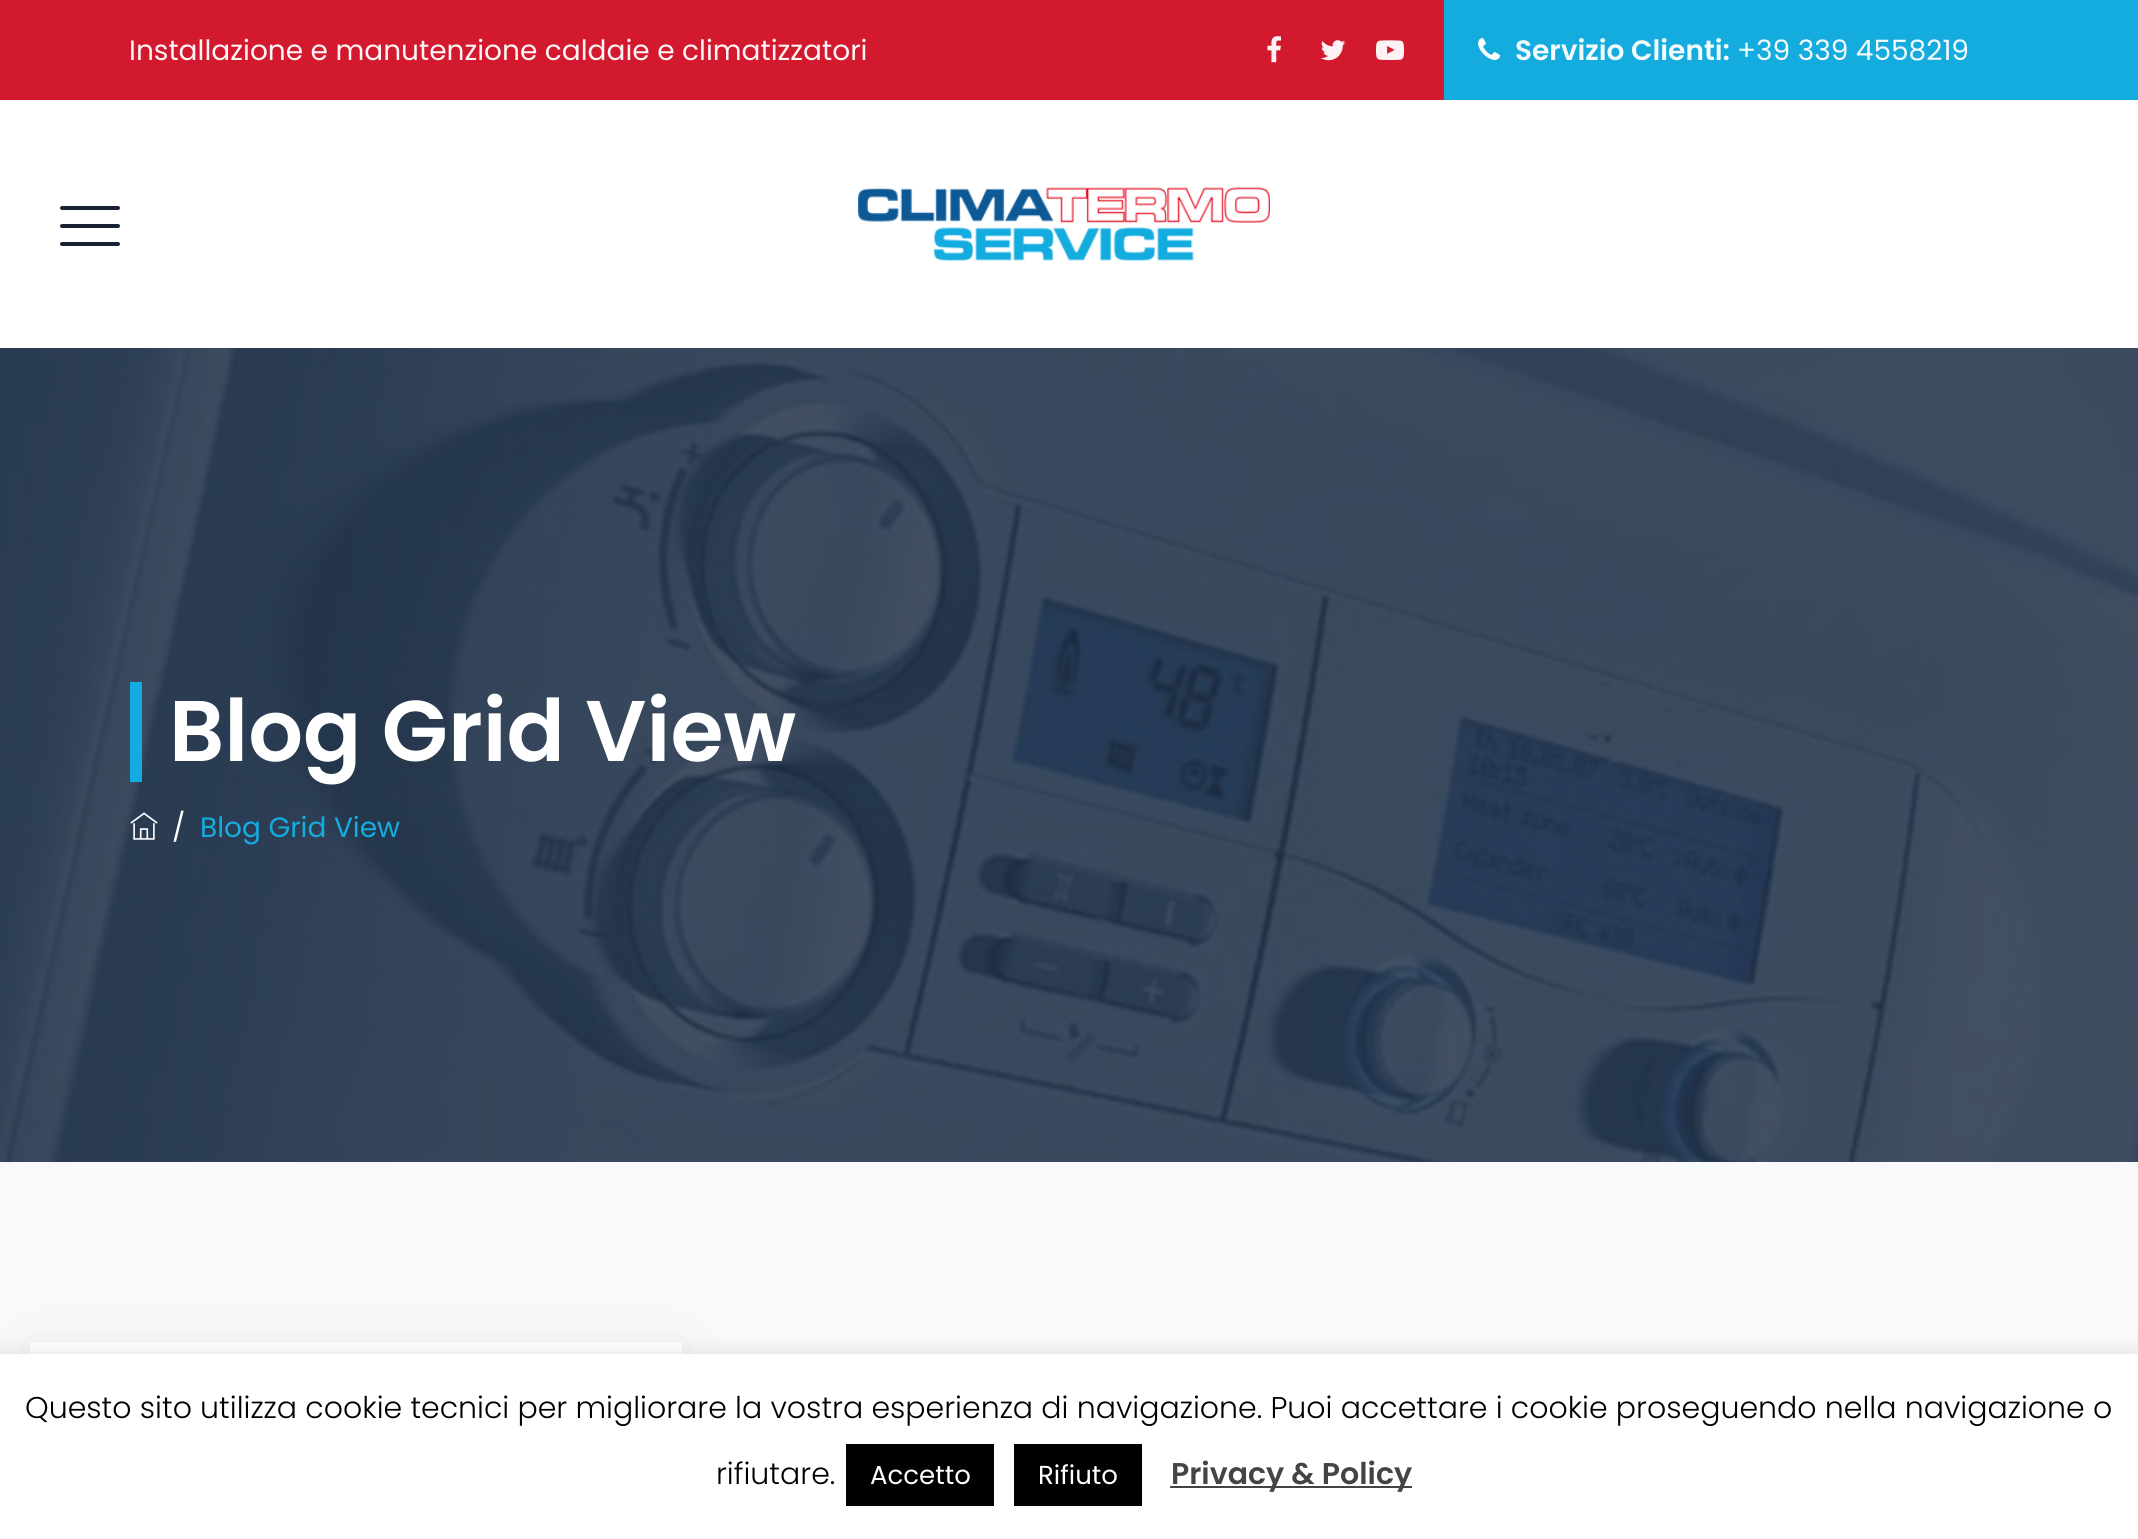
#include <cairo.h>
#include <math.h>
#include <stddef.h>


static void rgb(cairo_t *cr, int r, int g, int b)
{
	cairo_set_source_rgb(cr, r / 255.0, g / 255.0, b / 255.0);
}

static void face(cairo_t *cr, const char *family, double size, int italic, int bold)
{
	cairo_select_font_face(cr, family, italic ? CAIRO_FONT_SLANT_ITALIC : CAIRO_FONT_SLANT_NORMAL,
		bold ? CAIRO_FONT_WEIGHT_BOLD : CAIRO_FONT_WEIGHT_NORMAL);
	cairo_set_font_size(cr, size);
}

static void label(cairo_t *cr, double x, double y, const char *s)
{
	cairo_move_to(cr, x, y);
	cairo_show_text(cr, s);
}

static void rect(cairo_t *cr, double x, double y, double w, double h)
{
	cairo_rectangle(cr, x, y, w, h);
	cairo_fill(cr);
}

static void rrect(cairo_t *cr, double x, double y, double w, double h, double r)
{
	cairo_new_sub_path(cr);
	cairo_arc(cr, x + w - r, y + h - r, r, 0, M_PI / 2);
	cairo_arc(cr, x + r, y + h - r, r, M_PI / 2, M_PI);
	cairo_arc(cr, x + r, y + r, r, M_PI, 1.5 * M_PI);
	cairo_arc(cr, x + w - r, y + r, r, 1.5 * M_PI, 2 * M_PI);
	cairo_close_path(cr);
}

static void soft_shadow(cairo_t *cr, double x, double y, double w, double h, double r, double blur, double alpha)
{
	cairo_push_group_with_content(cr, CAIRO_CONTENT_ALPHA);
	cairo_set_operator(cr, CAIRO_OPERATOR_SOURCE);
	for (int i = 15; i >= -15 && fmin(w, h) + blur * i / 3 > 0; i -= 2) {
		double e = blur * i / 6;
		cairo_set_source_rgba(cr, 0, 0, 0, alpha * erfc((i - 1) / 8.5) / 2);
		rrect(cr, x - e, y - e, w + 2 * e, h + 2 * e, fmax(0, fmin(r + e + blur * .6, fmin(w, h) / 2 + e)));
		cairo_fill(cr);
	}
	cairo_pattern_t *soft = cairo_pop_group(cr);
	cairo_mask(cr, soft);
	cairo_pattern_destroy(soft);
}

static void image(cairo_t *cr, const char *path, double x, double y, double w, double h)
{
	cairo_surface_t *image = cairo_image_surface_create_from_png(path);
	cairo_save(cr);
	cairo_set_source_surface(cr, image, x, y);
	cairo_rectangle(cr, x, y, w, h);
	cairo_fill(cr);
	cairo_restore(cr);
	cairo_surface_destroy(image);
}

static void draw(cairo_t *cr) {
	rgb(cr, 255, 255, 255);
	cairo_paint(cr);
	rgb(cr, 211, 25, 46);
	rect(cr, 0, 0, 1444, 100);
	face(cr, "Poppins", 28, 0, 0);
	rgb(cr, 253, 244, 245);
	label(cr, 129, 60, "Installazione e manutenzione caldaie e climatizzatori");
	image(cr, "image0.png", 1267, 36, 14, 27);
	image(cr, "image1.png", 1321, 40, 25, 21);
	image(cr, "image2.png", 1376, 40, 28, 21);
	rgb(cr, 20, 172, 223);
	rect(cr, 1444, 0, 694, 100);
	image(cr, "image3.png", 1478, 38, 22, 22);
	face(cr, "Poppins SemiBold", 28, 0, 0);
	rgb(cr, 243, 251, 253);
	label(cr, 1515, 60, "Servizio Clienti:");
	face(cr, "Poppins", 28, 0, 0);
	label(cr, 1737, 60, "+39 339 4558219");
	rgb(cr, 24, 35, 51);
	rrect(cr, 60, 224, 60, 4, 2);
	cairo_fill(cr);
	rrect(cr, 60, 206, 60, 4, 2);
	cairo_fill(cr);
	rrect(cr, 60, 242, 60, 4, 2);
	cairo_fill(cr);
	image(cr, "image4.png", 858, 187, 412, 74);
	image(cr, "image5.png", 0, 348, 2138, 814);
	rgb(cr, 20, 172, 223);
	rect(cr, 130, 682, 12, 100);
	face(cr, "Poppins SemiBold", 86, 0, 0);
	rgb(cr, 255, 255, 255);
	label(cr, 169, 761, "Blog Grid View");
	image(cr, "image6.png", 130, 812, 28, 28);
	face(cr, "Poppins", 28, 0, 0);
	label(cr, 172, 837, "/");
	rgb(cr, 20, 172, 223);
	label(cr, 200, 837, "Blog Grid View");
	rgb(cr, 248, 249, 250);
	rect(cr, 0, 1162, 2138, 192);
	rgb(cr, 41, 61, 88);
	soft_shadow(cr, 30, 1342, 652, 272, 0, 25, 0.06);
	rgb(cr, 255, 255, 255);
	rect(cr, 30, 1342, 652, 12);
	rgb(cr, 172, 171, 171);
	soft_shadow(cr, 0, 1352, 2138, 186, 0, 10, 0.3);
	rgb(cr, 255, 255, 255);
	rect(cr, 0, 1354, 2138, 185);
	face(cr, "Poppins Light", 30, 0, 0);
	rgb(cr, 0, 0, 0);
	label(cr, 25, 1418, "Questo sito utilizza cookie tecnici per migliorare la vostra esperienza di navigazione. Puoi accettare i cookie proseguendo nella navigazione o");
	label(cr, 716, 1484, "rifiutare.");
	rect(cr, 846, 1444, 148, 62);
	face(cr, "Poppins", 26, 0, 0);
	rgb(cr, 255, 255, 255);
	label(cr, 870, 1484, "Accetto");
	rgb(cr, 0, 0, 0);
	rect(cr, 1014, 1444, 128, 62);
	rgb(cr, 255, 255, 255);
	label(cr, 1038, 1484, "Rifiuto");
	rgb(cr, 68, 68, 68);
	rect(cr, 1170, 1486, 242, 2);
	face(cr, "Poppins SemiBold", 30, 0, 0);
	label(cr, 1171, 1484, "Privacy & Policy");
}

int main(void) {
	cairo_surface_t *surface = cairo_image_surface_create(CAIRO_FORMAT_RGB24, 2138, 1539);
	cairo_t *cr = cairo_create(surface);
	cairo_font_options_t *options = cairo_font_options_create();
	cairo_font_options_set_hint_metrics(options, CAIRO_HINT_METRICS_OFF);
	cairo_font_options_set_hint_style(options, CAIRO_HINT_STYLE_NONE);
	cairo_set_font_options(cr, options);
	cairo_set_miter_limit(cr, 4);
	draw(cr);
	cairo_surface_write_to_png(surface, "render.png");
	cairo_font_options_destroy(options);
	cairo_destroy(cr);
	cairo_surface_destroy(surface);
	return 0;
}
